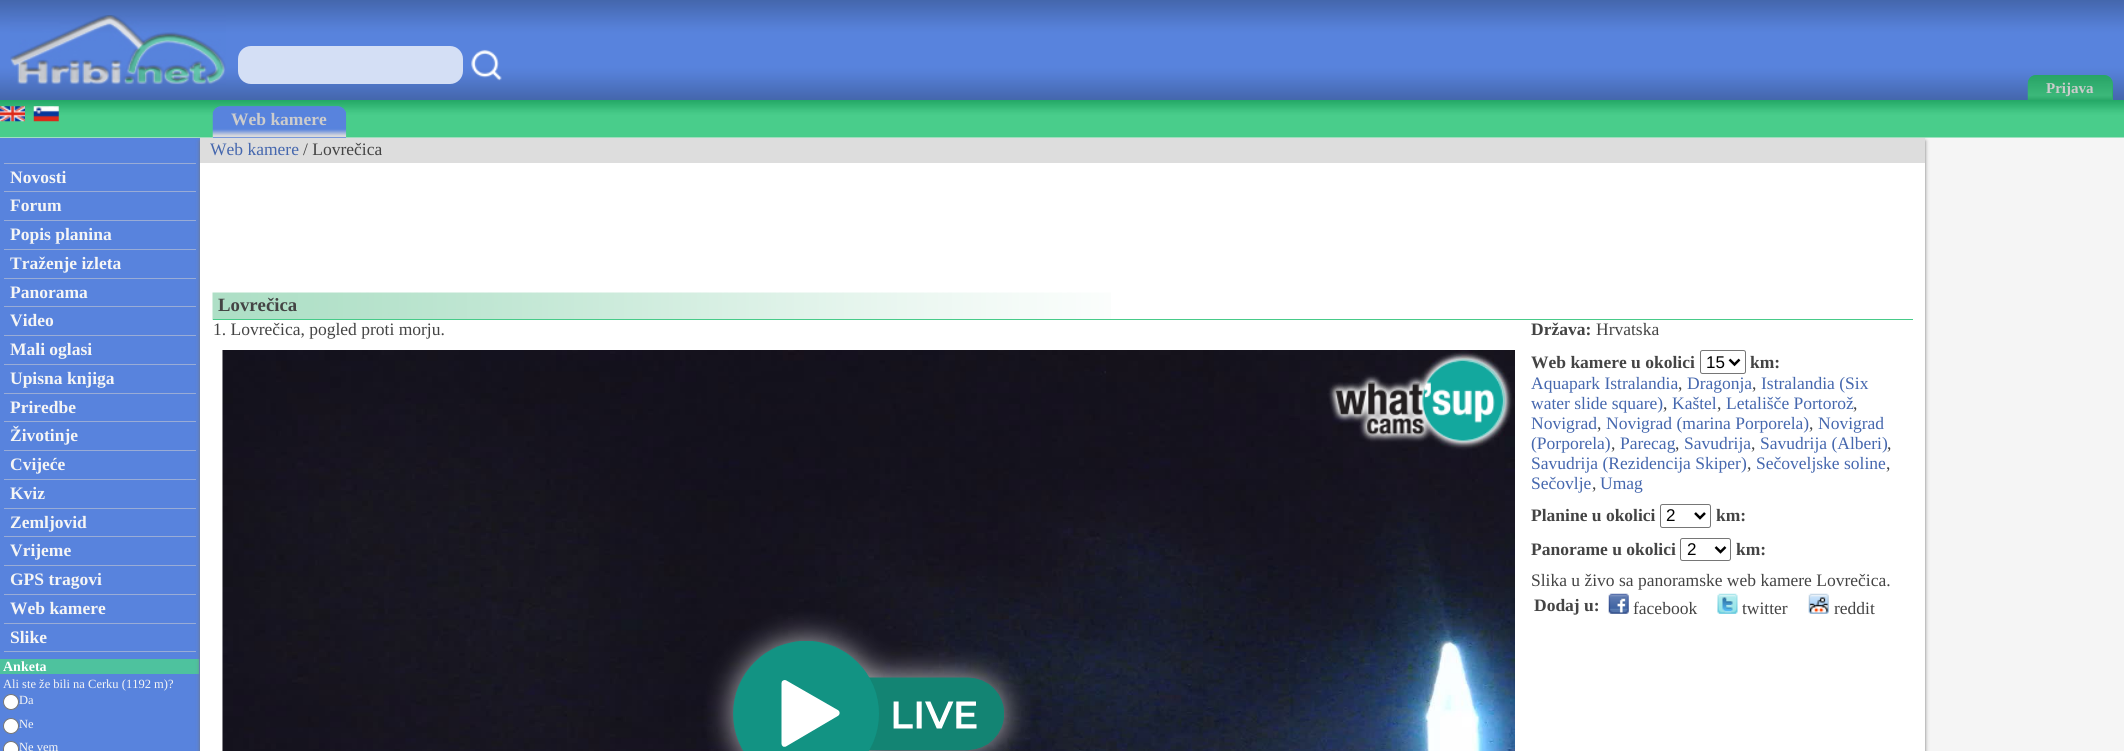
#include <cairo.h>
#include <math.h>
#include <stddef.h>


static void rgb(cairo_t *cr, int r, int g, int b)
{
	cairo_set_source_rgb(cr, r / 255.0, g / 255.0, b / 255.0);
}

static void face(cairo_t *cr, const char *family, double size, int italic, int bold)
{
	cairo_select_font_face(cr, family, italic ? CAIRO_FONT_SLANT_ITALIC : CAIRO_FONT_SLANT_NORMAL,
		bold ? CAIRO_FONT_WEIGHT_BOLD : CAIRO_FONT_WEIGHT_NORMAL);
	cairo_set_font_size(cr, size);
}

static void label(cairo_t *cr, double x, double y, const char *s)
{
	cairo_move_to(cr, x, y);
	cairo_show_text(cr, s);
}

static void rect(cairo_t *cr, double x, double y, double w, double h)
{
	cairo_rectangle(cr, x, y, w, h);
	cairo_fill(cr);
}

static void rrect(cairo_t *cr, double x, double y, double w, double h, double r)
{
	cairo_new_sub_path(cr);
	cairo_arc(cr, x + w - r, y + h - r, r, 0, M_PI / 2);
	cairo_arc(cr, x + r, y + h - r, r, M_PI / 2, M_PI);
	cairo_arc(cr, x + r, y + r, r, M_PI, 1.5 * M_PI);
	cairo_arc(cr, x + w - r, y + r, r, 1.5 * M_PI, 2 * M_PI);
	cairo_close_path(cr);
}

static void soft_shadow(cairo_t *cr, double x, double y, double w, double h, double r, double blur, double alpha)
{
	cairo_push_group_with_content(cr, CAIRO_CONTENT_ALPHA);
	cairo_set_operator(cr, CAIRO_OPERATOR_SOURCE);
	for (int i = 15; i >= -15 && fmin(w, h) + blur * i / 3 > 0; i -= 2) {
		double e = blur * i / 6;
		cairo_set_source_rgba(cr, 0, 0, 0, alpha * erfc((i - 1) / 8.5) / 2);
		rrect(cr, x - e, y - e, w + 2 * e, h + 2 * e, fmax(0, fmin(r + e + blur * .6, fmin(w, h) / 2 + e)));
		cairo_fill(cr);
	}
	cairo_pattern_t *soft = cairo_pop_group(cr);
	cairo_mask(cr, soft);
	cairo_pattern_destroy(soft);
}

static void image(cairo_t *cr, const char *path, double x, double y, double w, double h)
{
	cairo_surface_t *image = cairo_image_surface_create_from_png(path);
	cairo_save(cr);
	cairo_set_source_surface(cr, image, x, y);
	cairo_rectangle(cr, x, y, w, h);
	cairo_fill(cr);
	cairo_restore(cr);
	cairo_surface_destroy(image);
}

static void draw(cairo_t *cr) {
	rgb(cr, 245, 245, 245);
	cairo_paint(cr);
	image(cr, "image0.png", 0, 0, 2124, 100);
	image(cr, "image1.png", 10, 15, 216, 70);
	rgb(cr, 212, 223, 245);
	rrect(cr, 238, 46, 225, 38, 13);
	cairo_fill(cr);
	image(cr, "image2.png", 471, 49, 31, 32);
	rgb(cr, 46, 172, 109);
	cairo_new_path(cr);
	cairo_move_to(cr, 2037, 75);
	cairo_line_to(cr, 2104, 75);
	cairo_curve_to(cr, 2109, 75, 2113, 79, 2113, 84);
	cairo_line_to(cr, 2113, 100);
	cairo_line_to(cr, 2028, 100);
	cairo_line_to(cr, 2028, 84);
	cairo_curve_to(cr, 2028, 79, 2032, 75, 2037, 75);
	cairo_close_path(cr);
	cairo_fill(cr);
	image(cr, "image3.png", 2027, 75, 85, 25);
	face(cr, "Liberation Serif", 15, 0, 1);
	rgb(cr, 204, 204, 204);
	label(cr, 2046, 93, "Prijava");
	image(cr, "image4.png", 0, 100, 2124, 38);
	image(cr, "image5.png", 0, 106, 25, 16);
	image(cr, "image6.png", 33, 106, 26, 16);
	rgb(cr, 88, 131, 221);
	cairo_new_path(cr);
	cairo_move_to(cr, 222, 106);
	cairo_line_to(cr, 337, 106);
	cairo_curve_to(cr, 342, 106, 346, 110, 346, 115);
	cairo_line_to(cr, 346, 138);
	cairo_line_to(cr, 213, 138);
	cairo_line_to(cr, 213, 115);
	cairo_curve_to(cr, 213, 110, 217, 106, 222, 106);
	cairo_close_path(cr);
	cairo_fill(cr);
	image(cr, "image7.png", 212, 106, 135, 32);
	face(cr, "Liberation Serif", 17.5, 0, 1);
	rgb(cr, 204, 204, 204);
	label(cr, 231, 125, "Web kamere");
	rgb(cr, 88, 131, 221);
	rect(cr, 0, 138, 200, 613);
	rgb(cr, 153, 172, 214);
	rect(cr, 4, 163, 192, 1);
	rgb(cr, 245, 245, 245);
	label(cr, 10, 183, "Novosti");
	rgb(cr, 153, 172, 214);
	rect(cr, 4, 191, 192, 1);
	rgb(cr, 245, 245, 245);
	label(cr, 10, 211, "Forum");
	rgb(cr, 153, 172, 214);
	rect(cr, 4, 220, 192, 1);
	rgb(cr, 245, 245, 245);
	label(cr, 10, 240, "Popis planina");
	rgb(cr, 153, 172, 214);
	rect(cr, 4, 249, 192, 1);
	rgb(cr, 245, 245, 245);
	label(cr, 10, 269, "Traženje izleta");
	rgb(cr, 153, 172, 214);
	rect(cr, 4, 278, 192, 1);
	rgb(cr, 245, 245, 245);
	label(cr, 10, 298, "Panorama");
	rgb(cr, 153, 172, 214);
	rect(cr, 4, 306, 192, 1);
	rgb(cr, 245, 245, 245);
	label(cr, 10, 326, "Video");
	rgb(cr, 153, 172, 214);
	rect(cr, 4, 335, 192, 1);
	rgb(cr, 245, 245, 245);
	label(cr, 10, 355, "Mali oglasi");
	rgb(cr, 153, 172, 214);
	rect(cr, 4, 364, 192, 1);
	rgb(cr, 245, 245, 245);
	label(cr, 10, 384, "Upisna knjiga");
	rgb(cr, 153, 172, 214);
	rect(cr, 4, 393, 192, 1);
	rgb(cr, 245, 245, 245);
	label(cr, 10, 413, "Priredbe");
	rgb(cr, 153, 172, 214);
	rect(cr, 4, 421, 192, 1);
	rgb(cr, 245, 245, 245);
	label(cr, 10, 441, "Životinje");
	rgb(cr, 153, 172, 214);
	rect(cr, 4, 450, 192, 1);
	rgb(cr, 245, 245, 245);
	label(cr, 10, 470, "Cvijeće");
	rgb(cr, 153, 172, 214);
	rect(cr, 4, 479, 192, 1);
	rgb(cr, 245, 245, 245);
	label(cr, 10, 499, "Kviz");
	rgb(cr, 153, 172, 214);
	rect(cr, 4, 508, 192, 1);
	rgb(cr, 245, 245, 245);
	label(cr, 10, 528, "Zemljovid");
	rgb(cr, 153, 172, 214);
	rect(cr, 4, 536, 192, 1);
	rgb(cr, 245, 245, 245);
	label(cr, 10, 556, "Vrijeme");
	rgb(cr, 153, 172, 214);
	rect(cr, 4, 565, 192, 1);
	rgb(cr, 245, 245, 245);
	label(cr, 10, 585, "GPS tragovi");
	rgb(cr, 153, 172, 214);
	rect(cr, 4, 594, 192, 1);
	rgb(cr, 245, 245, 245);
	label(cr, 10, 614, "Web kamere");
	rgb(cr, 153, 172, 214);
	rect(cr, 4, 623, 192, 1);
	rgb(cr, 245, 245, 245);
	label(cr, 10, 643, "Slike");
	rgb(cr, 153, 172, 214);
	rect(cr, 4, 651, 192, 1);
	rgb(cr, 78, 194, 158);
	rect(cr, 0, 659, 199, 15);
	face(cr, "Liberation Serif", 14, 0, 1);
	rgb(cr, 255, 255, 255);
	label(cr, 3, 671, "Anketa");
	face(cr, "Liberation Serif", 12.5, 0, 0);
	rgb(cr, 245, 245, 245);
	label(cr, 3, 688, "Ali ste že bili na Cerku (1192 m)?");
	rgb(cr, 255, 255, 255);
	cairo_new_path(cr);
	cairo_arc(cr, 11, 702, 7.5, 0, 2 * M_PI);
	cairo_fill_preserve(cr);
	rgb(cr, 118, 118, 118);
	cairo_set_line_width(cr, 1);
	cairo_stroke(cr);
	rgb(cr, 245, 245, 245);
	label(cr, 19, 704, "Da");
	rgb(cr, 255, 255, 255);
	cairo_new_path(cr);
	cairo_arc(cr, 11, 726, 7.5, 0, 2 * M_PI);
	cairo_fill_preserve(cr);
	rgb(cr, 118, 118, 118);
	cairo_stroke(cr);
	rgb(cr, 245, 245, 245);
	label(cr, 19, 728, "Ne");
	rgb(cr, 255, 255, 255);
	rrect(cr, 3.5, 741.5, 15, 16, 7.5);
	cairo_fill_preserve(cr);
	rgb(cr, 118, 118, 118);
	cairo_stroke(cr);
	rgb(cr, 245, 245, 245);
	label(cr, 19, 751, "Ne vem");
	rgb(cr, 119, 119, 119);
	soft_shadow(cr, 200, 141, 1725, 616, 0, 2, 1);
	rgb(cr, 255, 255, 255);
	rect(cr, 200, 163, 1725, 588);
	rgb(cr, 221, 221, 221);
	rect(cr, 200, 138, 1725, 25);
	face(cr, "Liberation Serif", 17.5, 0, 0);
	rgb(cr, 69, 103, 174);
	label(cr, 210, 155, "Web kamere");
	rgb(cr, 68, 68, 68);
	label(cr, 303, 155, "/ Lovrečica");
	image(cr, "image8.png", 212, 292, 899, 28);
	rgb(cr, 71, 203, 137);
	rect(cr, 213, 319, 1700, 1);
	face(cr, "Liberation Serif", 18.75, 0, 1);
	rgb(cr, 68, 68, 68);
	label(cr, 218, 311, "Lovrečica");
	face(cr, "Liberation Serif", 17.5, 0, 0);
	label(cr, 213, 335, "1. Lovrečica, pogled proti morju.");
	image(cr, "image9.png", 222, 350, 1293, 401);
	face(cr, "Liberation Serif", 17.5, 0, 1);
	label(cr, 1531, 335, "Država:");
	face(cr, "Liberation Serif", 17.5, 0, 0);
	label(cr, 1596, 335, "Hrvatska");
	face(cr, "Liberation Serif", 17.5, 0, 1);
	label(cr, 1531, 368, "Web kamere u okolici");
	rrect(cr, 1700.5, 350.5, 45, 23, 2);
	rgb(cr, 118, 118, 118);
	cairo_stroke(cr);
	cairo_new_path(cr);
	cairo_move_to(cr, 1729.5, 359.5);
	cairo_line_to(cr, 1734.5, 364.5);
	cairo_line_to(cr, 1739.5, 359.5);
	rgb(cr, 0, 0, 0);
	cairo_set_line_width(cr, 2.5);
	cairo_stroke(cr);
	face(cr, "Liberation Sans", 17, 0, 0);
	label(cr, 1706, 368, "15");
	face(cr, "Liberation Serif", 17.5, 0, 1);
	rgb(cr, 68, 68, 68);
	label(cr, 1750, 368, "km:");
	face(cr, "Liberation Serif", 17.5, 0, 0);
	rgb(cr, 69, 103, 174);
	label(cr, 1531, 389, "Aquapark Istralandia");
	rgb(cr, 68, 68, 68);
	label(cr, 1678, 389, ",");
	rgb(cr, 69, 103, 174);
	label(cr, 1687, 389, "Dragonja");
	rgb(cr, 68, 68, 68);
	label(cr, 1752, 389, ",");
	rgb(cr, 69, 103, 174);
	label(cr, 1761, 389, "Istralandia (Six");
	label(cr, 1531, 409, "water slide square)");
	rgb(cr, 68, 68, 68);
	label(cr, 1663, 409, ",");
	rgb(cr, 69, 103, 174);
	label(cr, 1672, 409, "Kaštel");
	rgb(cr, 68, 68, 68);
	label(cr, 1717, 409, ",");
	rgb(cr, 69, 103, 174);
	label(cr, 1726, 409, "Letališče Portorož");
	rgb(cr, 68, 68, 68);
	label(cr, 1853, 409, ",");
	rgb(cr, 69, 103, 174);
	label(cr, 1531, 429, "Novigrad");
	rgb(cr, 68, 68, 68);
	label(cr, 1597, 429, ",");
	rgb(cr, 69, 103, 174);
	label(cr, 1606, 429, "Novigrad (marina Porporela)");
	rgb(cr, 68, 68, 68);
	label(cr, 1809, 429, ",");
	rgb(cr, 69, 103, 174);
	label(cr, 1818, 429, "Novigrad");
	label(cr, 1531, 449, "(Porporela)");
	rgb(cr, 68, 68, 68);
	label(cr, 1611, 449, ",");
	rgb(cr, 69, 103, 174);
	label(cr, 1620, 449, "Parecag");
	rgb(cr, 68, 68, 68);
	label(cr, 1675, 449, ",");
	rgb(cr, 69, 103, 174);
	label(cr, 1684, 449, "Savudrija");
	rgb(cr, 68, 68, 68);
	label(cr, 1751, 449, ",");
	rgb(cr, 69, 103, 174);
	label(cr, 1760, 449, "Savudrija (Alberi)");
	rgb(cr, 68, 68, 68);
	label(cr, 1887, 449, ",");
	rgb(cr, 69, 103, 174);
	label(cr, 1531, 469, "Savudrija (Rezidencija Skiper)");
	rgb(cr, 68, 68, 68);
	label(cr, 1747, 469, ",");
	rgb(cr, 69, 103, 174);
	label(cr, 1756, 469, "Sečoveljske soline");
	rgb(cr, 68, 68, 68);
	label(cr, 1886, 469, ",");
	rgb(cr, 69, 103, 174);
	label(cr, 1531, 489, "Sečovlje");
	rgb(cr, 68, 68, 68);
	label(cr, 1592, 489, ",");
	rgb(cr, 69, 103, 174);
	label(cr, 1600, 489, "Umag");
	face(cr, "Liberation Serif", 17.5, 0, 1);
	rgb(cr, 68, 68, 68);
	label(cr, 1531, 521, "Planine u okolici");
	rrect(cr, 1660.5, 504.5, 50, 23, 2);
	rgb(cr, 118, 118, 118);
	cairo_set_line_width(cr, 1);
	cairo_stroke(cr);
	cairo_new_path(cr);
	cairo_move_to(cr, 1695, 513);
	cairo_line_to(cr, 1700, 518);
	cairo_line_to(cr, 1705, 513);
	rgb(cr, 0, 0, 0);
	cairo_set_line_width(cr, 2.5);
	cairo_stroke(cr);
	face(cr, "Liberation Sans", 17, 0, 0);
	label(cr, 1666, 521, "2");
	face(cr, "Liberation Serif", 17.5, 0, 1);
	rgb(cr, 68, 68, 68);
	label(cr, 1716, 521, "km:");
	label(cr, 1531, 555, "Panorame u okolici");
	rrect(cr, 1680.5, 538.5, 50, 22, 2);
	rgb(cr, 118, 118, 118);
	cairo_set_line_width(cr, 1);
	cairo_stroke(cr);
	cairo_new_path(cr);
	cairo_move_to(cr, 1715.5, 547);
	cairo_line_to(cr, 1720.5, 552);
	cairo_line_to(cr, 1725.5, 547);
	rgb(cr, 0, 0, 0);
	cairo_set_line_width(cr, 2.5);
	cairo_stroke(cr);
	face(cr, "Liberation Sans", 17, 0, 0);
	label(cr, 1687, 555, "2");
	face(cr, "Liberation Serif", 17.5, 0, 1);
	rgb(cr, 68, 68, 68);
	label(cr, 1736, 555, "km:");
	face(cr, "Liberation Serif", 17.5, 0, 0);
	label(cr, 1531, 586, "Slika u živo sa panoramske web kamere Lovrečica.");
	face(cr, "Liberation Serif", 17.5, 0, 1);
	label(cr, 1534, 611, "Dodaj u:");
	image(cr, "image10.png", 1608, 593, 21, 21);
	face(cr, "Liberation Serif", 17.5, 0, 0);
	label(cr, 1633, 614, "facebook");
	image(cr, "image11.png", 1717, 593, 21, 21);
	label(cr, 1742, 614, "twitter");
	image(cr, "image12.png", 1808, 593, 21, 21);
	label(cr, 1834, 614, "reddit");
}

int main(void) {
	cairo_surface_t *surface = cairo_image_surface_create(CAIRO_FORMAT_RGB24, 2124, 751);
	cairo_t *cr = cairo_create(surface);
	cairo_font_options_t *options = cairo_font_options_create();
	cairo_font_options_set_hint_metrics(options, CAIRO_HINT_METRICS_OFF);
	cairo_font_options_set_hint_style(options, CAIRO_HINT_STYLE_NONE);
	cairo_set_font_options(cr, options);
	cairo_set_miter_limit(cr, 4);
	draw(cr);
	cairo_surface_write_to_png(surface, "render.png");
	cairo_font_options_destroy(options);
	cairo_destroy(cr);
	cairo_surface_destroy(surface);
	return 0;
}
